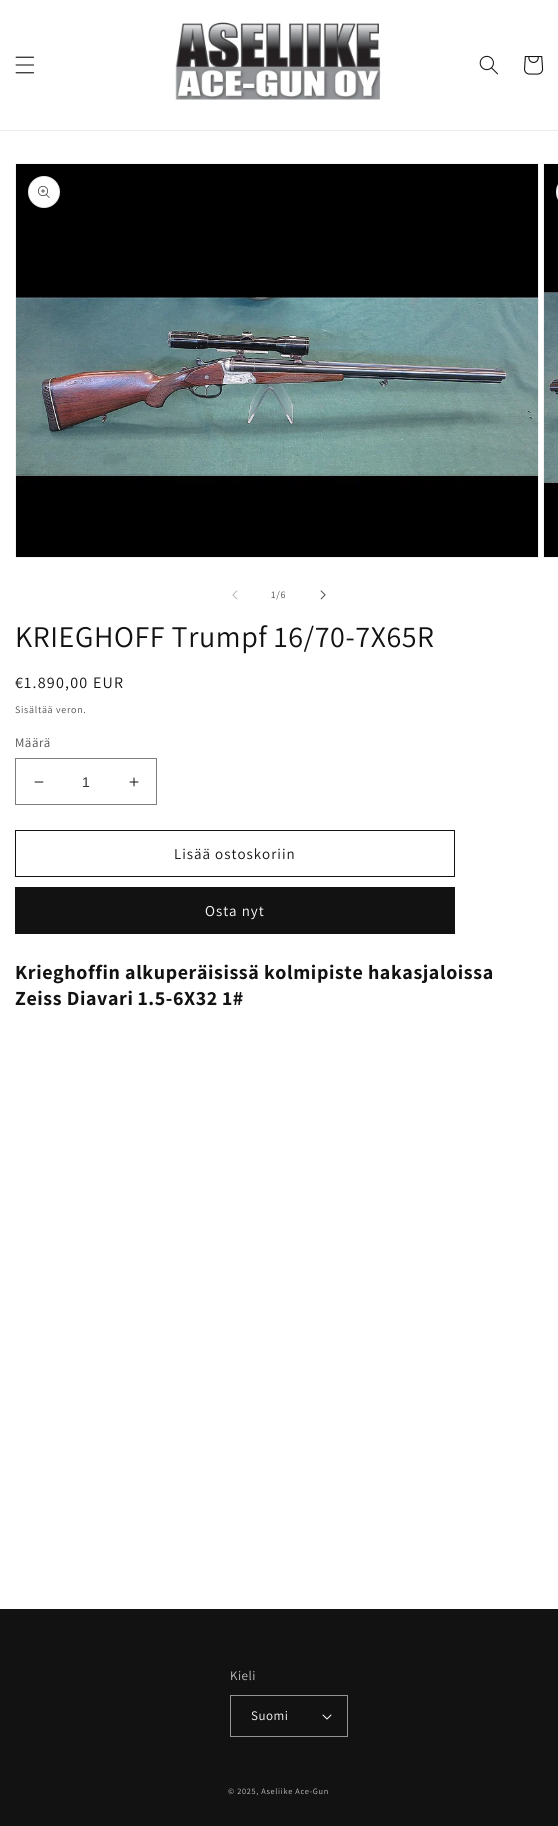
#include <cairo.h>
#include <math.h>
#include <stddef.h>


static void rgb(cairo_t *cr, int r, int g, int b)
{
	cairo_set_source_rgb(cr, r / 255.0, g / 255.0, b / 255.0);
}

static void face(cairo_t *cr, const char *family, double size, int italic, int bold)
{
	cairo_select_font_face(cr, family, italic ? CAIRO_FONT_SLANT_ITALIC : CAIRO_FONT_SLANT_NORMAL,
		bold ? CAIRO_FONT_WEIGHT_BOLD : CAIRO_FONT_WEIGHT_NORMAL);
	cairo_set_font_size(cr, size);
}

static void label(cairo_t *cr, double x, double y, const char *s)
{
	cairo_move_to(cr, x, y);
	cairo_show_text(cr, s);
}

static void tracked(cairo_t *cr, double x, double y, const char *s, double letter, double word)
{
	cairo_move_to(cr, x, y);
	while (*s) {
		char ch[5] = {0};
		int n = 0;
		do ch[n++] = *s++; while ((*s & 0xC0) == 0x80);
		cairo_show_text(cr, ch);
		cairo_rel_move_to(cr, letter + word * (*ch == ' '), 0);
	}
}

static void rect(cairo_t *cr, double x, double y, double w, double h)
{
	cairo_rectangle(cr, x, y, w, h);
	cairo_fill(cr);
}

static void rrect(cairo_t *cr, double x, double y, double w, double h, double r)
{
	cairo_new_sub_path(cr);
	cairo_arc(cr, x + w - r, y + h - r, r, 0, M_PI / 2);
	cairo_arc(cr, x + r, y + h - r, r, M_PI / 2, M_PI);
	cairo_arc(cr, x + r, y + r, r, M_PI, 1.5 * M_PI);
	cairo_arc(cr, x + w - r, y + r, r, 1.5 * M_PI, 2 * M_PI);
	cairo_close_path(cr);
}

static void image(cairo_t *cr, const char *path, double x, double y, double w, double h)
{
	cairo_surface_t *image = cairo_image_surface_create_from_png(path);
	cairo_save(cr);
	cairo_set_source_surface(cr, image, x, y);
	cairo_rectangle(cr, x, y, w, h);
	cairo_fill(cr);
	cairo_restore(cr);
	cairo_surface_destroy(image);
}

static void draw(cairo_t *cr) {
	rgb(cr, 255, 255, 255);
	cairo_paint(cr);
	rgb(cr, 236, 236, 236);
	rect(cr, 0, 130, 558, 1);
	image(cr, "image0.png", 15, 56, 20, 18);
	image(cr, "image1.png", 175, 22, 206, 78);
	image(cr, "image2.png", 479, 55, 19, 20);
	image(cr, "image3.png", 524, 56, 20, 19);
	cairo_rectangle(cr, 15.5, 163.5, 523, 394);
	rgb(cr, 243, 243, 243);
	cairo_set_line_width(cr, 1);
	cairo_stroke(cr);
	image(cr, "image4.png", 16, 164, 522, 393);
	rgb(cr, 255, 255, 255);
	cairo_arc(cr, 44, 192, 16, 0, 2 * M_PI);
	cairo_fill(cr);
	cairo_arc(cr, 44, 192, 15.5, 0, 2 * M_PI);
	cairo_set_source_rgba(cr, 0.071, 0.071, 0.071, 0.1);
	cairo_stroke(cr);
	image(cr, "image5.png", 38, 186, 12, 12);
	cairo_rectangle(cr, 543.5, 163.5, 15, 394);
	rgb(cr, 243, 243, 243);
	cairo_stroke(cr);
	image(cr, "image6.png", 544, 164, 14, 393);
	rgb(cr, 255, 255, 255);
	cairo_new_path(cr);
	cairo_move_to(cr, 572, 176);
	cairo_line_to(cr, 558, 176);
	cairo_line_to(cr, 558, 208);
	cairo_line_to(cr, 572, 208);
	cairo_curve_to(cr, 563, 208, 556, 201, 556, 192);
	cairo_curve_to(cr, 556, 183, 563, 176, 572, 176);
	cairo_close_path(cr);
	cairo_fill(cr);
	rrect(cr, 556.5, 176.5, 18, 31, 15.5);
	cairo_set_source_rgba(cr, 0.071, 0.071, 0.071, 0.1);
	cairo_stroke(cr);
	image(cr, "image7.png", 232, 590, 6, 10);
	face(cr, "Assistant", 10, 0, 0);
	rgb(cr, 77, 77, 77);
	tracked(cr, 271, 598, "1/6", 0.7, 0);
	image(cr, "image8.png", 320, 590, 6, 10);
	face(cr, "Assistant", 30, 0, 0);
	rgb(cr, 18, 18, 18);
	tracked(cr, 15, 647, "KRIEGHOFF Trumpf 16/70-7X65R", 0.6, 0);
	face(cr, "Assistant", 16, 0, 0);
	tracked(cr, 15, 688, "€1.890,00 EUR", 1.25, 0);
	face(cr, "Assistant", 10, 0, 0);
	rgb(cr, 77, 77, 77);
	tracked(cr, 15, 713, "Sisältää veron.", 0.7, 0);
	face(cr, "Assistant", 13, 0, 0);
	tracked(cr, 15, 747, "Määrä", 0.5, 0);
	image(cr, "image9.png", 34, 781, 10, 2);
	image(cr, "image10.png", 129, 777, 10, 10);
	cairo_rectangle(cr, 15.5, 758.5, 141, 46);
	rgb(cr, 125, 125, 125);
	cairo_stroke(cr);
	face(cr, "Liberation Sans", 14, 0, 0);
	rgb(cr, 54, 54, 54);
	label(cr, 82, 787, "1");
	cairo_rectangle(cr, 15.5, 830.5, 439, 46);
	rgb(cr, 18, 18, 18);
	cairo_stroke(cr);
	face(cr, "Assistant", 15, 0, 0);
	tracked(cr, 174, 859, "Lisää ostoskoriin", 1, 0);
	rect(cr, 15, 887, 440, 47);
	rgb(cr, 255, 255, 255);
	tracked(cr, 205, 916, "Osta nyt", 1, 0);
	face(cr, "Assistant", 20, 0, 1);
	rgb(cr, 18, 18, 18);
	tracked(cr, 15, 979, "Krieghoffin alkuperäisissä kolmipiste hakasjaloissa", 0.6, 0);
	tracked(cr, 15, 1005, "Zeiss Diavari 1.5-6X32 1#", 0.6, 0);
	rect(cr, 0, 1609, 558, 217);
	face(cr, "Assistant", 13, 0, 0);
	rgb(cr, 196, 196, 196);
	tracked(cr, 230, 1680, "Kieli", 0.5, 0);
	image(cr, "image11.png", 322, 1714, 10, 6);
	cairo_rectangle(cr, 230.5, 1695.5, 117, 41);
	rgb(cr, 148, 148, 148);
	cairo_stroke(cr);
	rgb(cr, 255, 255, 255);
	tracked(cr, 251, 1720, "Suomi", 0.5, 0);
	face(cr, "Assistant", 8.25, 0, 0);
	rgb(cr, 196, 196, 196);
	tracked(cr, 228, 1794, "© 2025, Aseliike Ace-Gun", 0.7, 0);
}

int main(void) {
	cairo_surface_t *surface = cairo_image_surface_create(CAIRO_FORMAT_RGB24, 558, 1826);
	cairo_t *cr = cairo_create(surface);
	cairo_font_options_t *options = cairo_font_options_create();
	cairo_font_options_set_hint_metrics(options, CAIRO_HINT_METRICS_OFF);
	cairo_font_options_set_hint_style(options, CAIRO_HINT_STYLE_NONE);
	cairo_set_font_options(cr, options);
	cairo_set_miter_limit(cr, 4);
	draw(cr);
	cairo_surface_write_to_png(surface, "render.png");
	cairo_font_options_destroy(options);
	cairo_destroy(cr);
	cairo_surface_destroy(surface);
	return 0;
}
